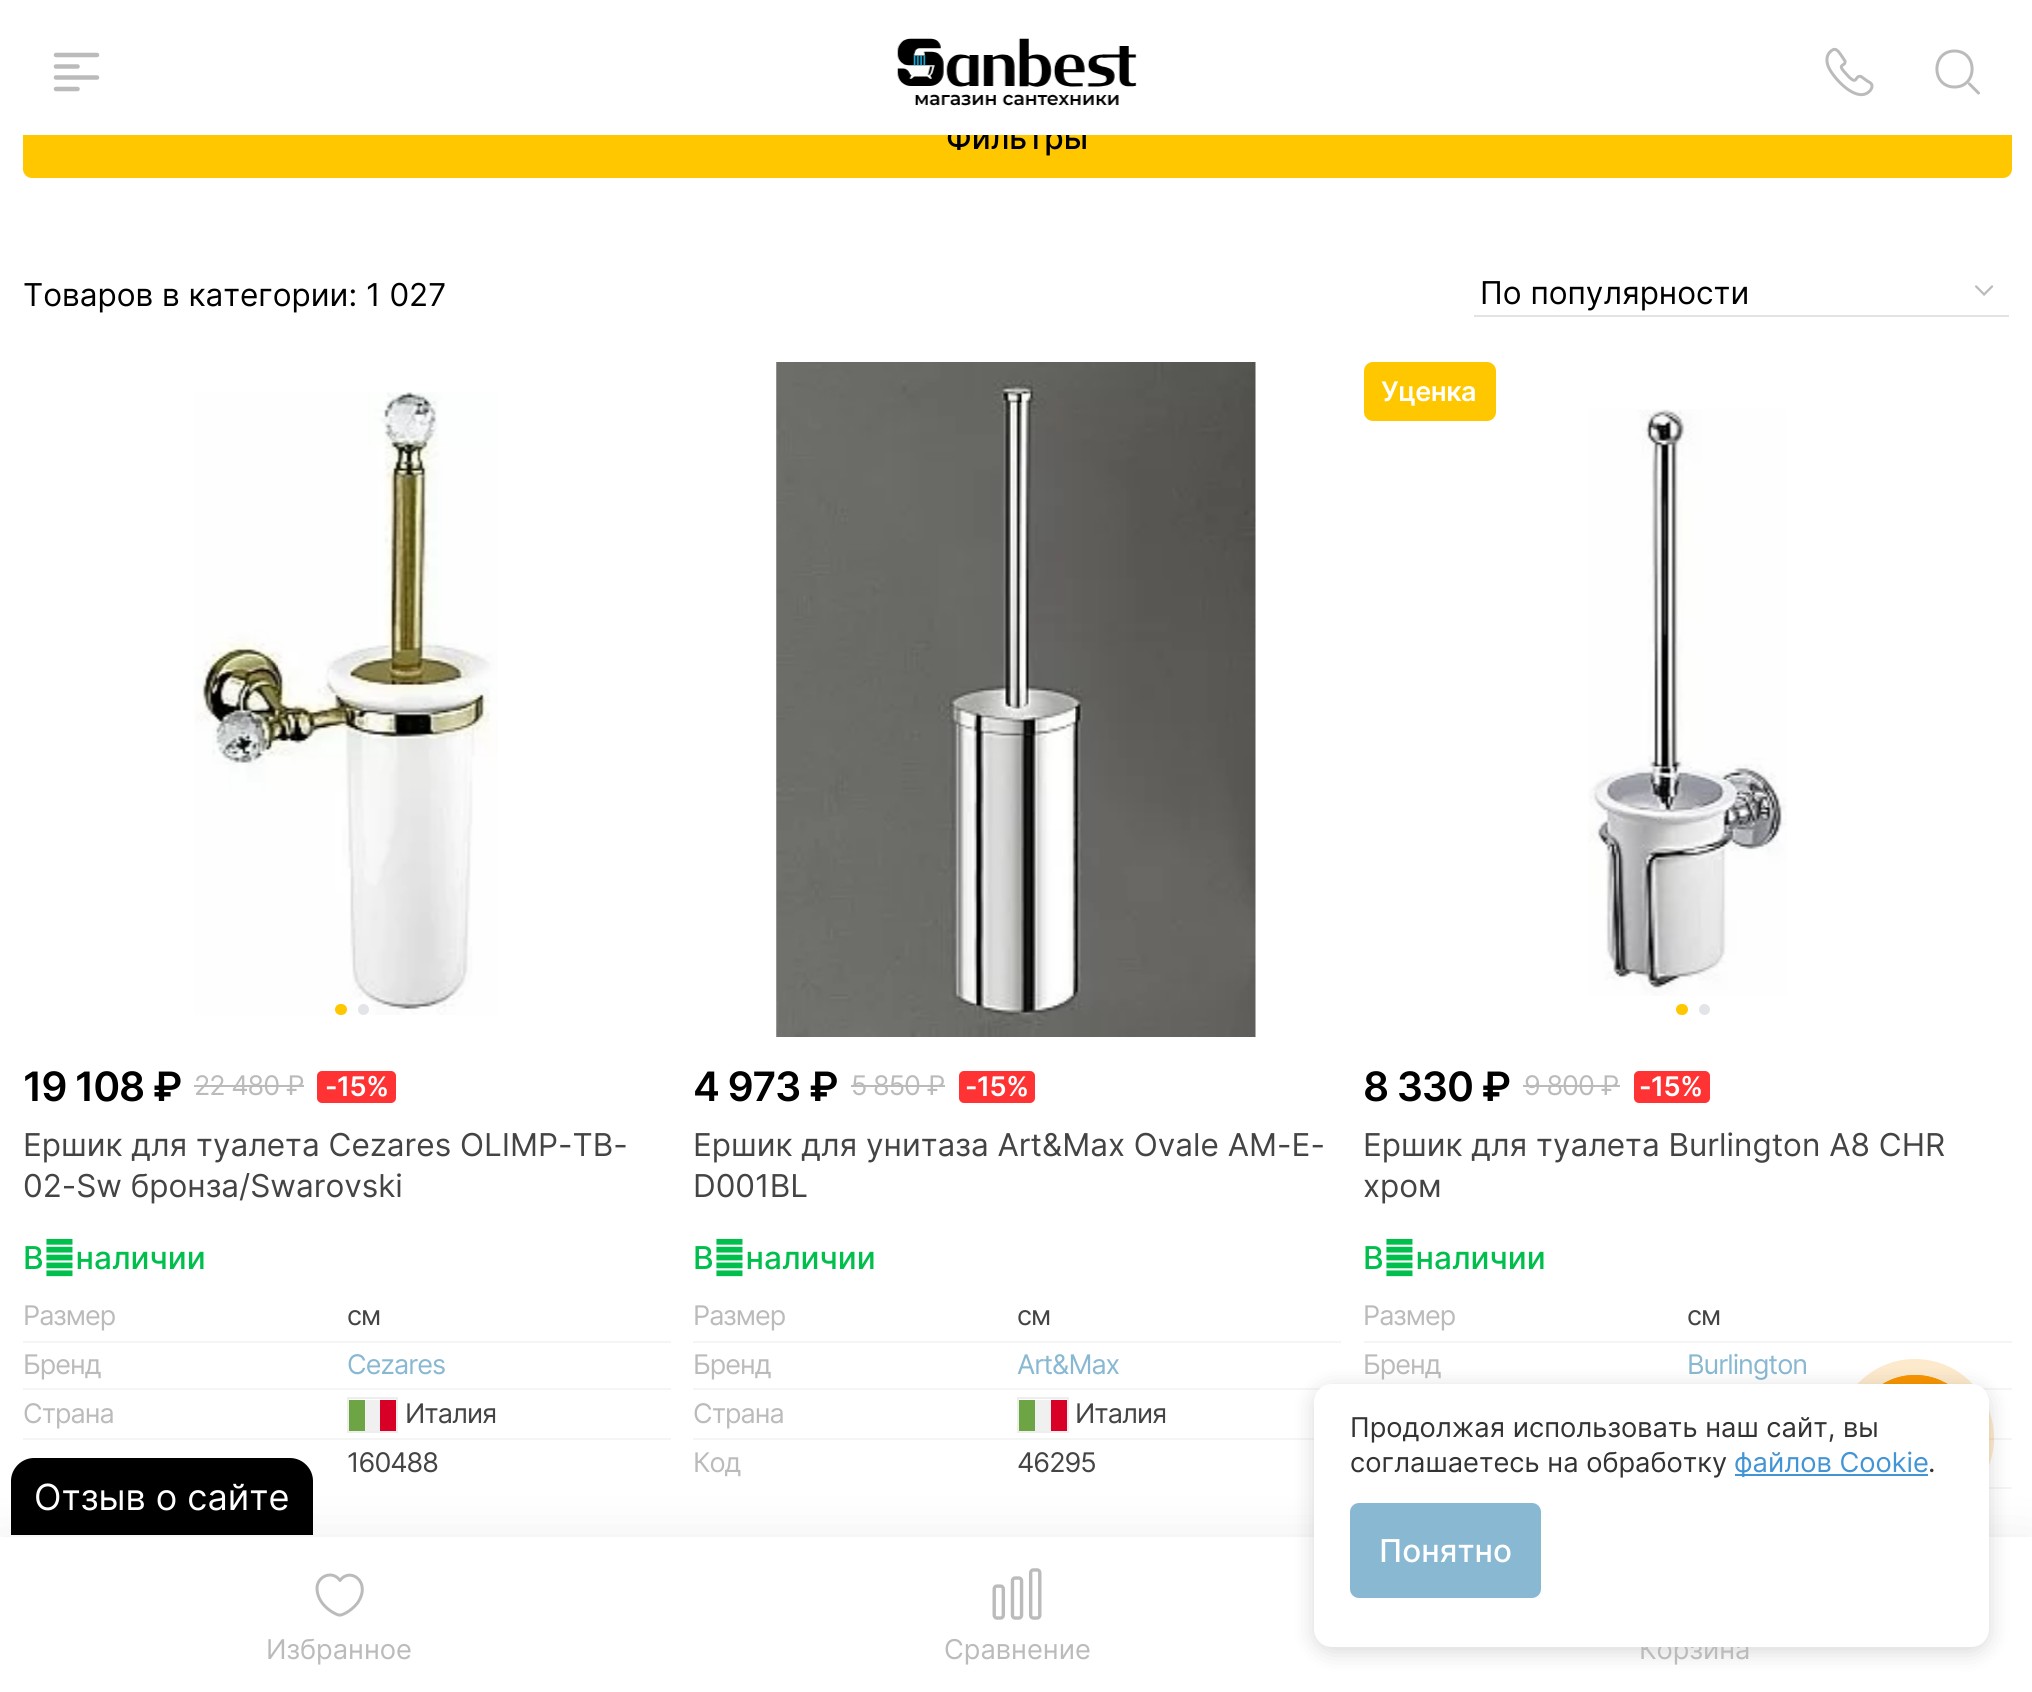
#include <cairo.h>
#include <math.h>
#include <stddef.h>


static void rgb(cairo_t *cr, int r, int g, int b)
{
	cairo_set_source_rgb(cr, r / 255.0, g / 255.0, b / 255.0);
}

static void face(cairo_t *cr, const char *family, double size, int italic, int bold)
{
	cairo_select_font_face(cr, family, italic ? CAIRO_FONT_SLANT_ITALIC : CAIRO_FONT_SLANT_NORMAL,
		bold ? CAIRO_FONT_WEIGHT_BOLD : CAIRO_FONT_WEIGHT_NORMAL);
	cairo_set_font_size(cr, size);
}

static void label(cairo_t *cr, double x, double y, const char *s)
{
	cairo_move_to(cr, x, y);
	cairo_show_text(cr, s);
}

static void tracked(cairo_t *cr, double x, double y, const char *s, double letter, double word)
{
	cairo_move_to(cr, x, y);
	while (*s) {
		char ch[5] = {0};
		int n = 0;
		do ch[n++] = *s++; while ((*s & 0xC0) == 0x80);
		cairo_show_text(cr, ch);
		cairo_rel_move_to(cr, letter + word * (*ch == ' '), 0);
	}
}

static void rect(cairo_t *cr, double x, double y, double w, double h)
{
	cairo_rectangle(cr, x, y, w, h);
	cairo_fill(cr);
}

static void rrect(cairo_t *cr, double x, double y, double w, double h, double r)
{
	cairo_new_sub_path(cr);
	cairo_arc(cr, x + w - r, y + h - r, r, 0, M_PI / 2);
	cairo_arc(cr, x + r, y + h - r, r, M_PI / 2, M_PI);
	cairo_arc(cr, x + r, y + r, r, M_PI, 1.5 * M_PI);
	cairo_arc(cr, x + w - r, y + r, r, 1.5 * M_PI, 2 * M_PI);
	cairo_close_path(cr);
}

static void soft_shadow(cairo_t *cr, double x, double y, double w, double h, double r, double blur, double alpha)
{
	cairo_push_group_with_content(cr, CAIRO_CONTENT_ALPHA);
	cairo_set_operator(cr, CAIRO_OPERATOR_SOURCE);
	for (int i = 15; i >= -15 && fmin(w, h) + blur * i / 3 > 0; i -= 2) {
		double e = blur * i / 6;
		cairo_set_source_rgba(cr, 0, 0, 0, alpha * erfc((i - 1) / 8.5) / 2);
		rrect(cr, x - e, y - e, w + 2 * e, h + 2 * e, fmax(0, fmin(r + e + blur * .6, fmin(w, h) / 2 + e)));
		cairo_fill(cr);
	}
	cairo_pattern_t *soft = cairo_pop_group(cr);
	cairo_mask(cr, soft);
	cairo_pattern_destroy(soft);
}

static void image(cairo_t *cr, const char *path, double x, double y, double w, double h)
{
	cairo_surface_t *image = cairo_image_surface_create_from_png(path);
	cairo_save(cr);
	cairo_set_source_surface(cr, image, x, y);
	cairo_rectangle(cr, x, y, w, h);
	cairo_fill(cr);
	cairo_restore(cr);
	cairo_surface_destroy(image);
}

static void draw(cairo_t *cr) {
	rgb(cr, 255, 255, 255);
	cairo_paint(cr);
	rgb(cr, 255, 199, 0);
	rrect(cr, 23, 95, 1989, 83, 9);
	cairo_fill(cr);
	face(cr, "Inter Medium", 31.5, 1, 0);
	rgb(cr, 0, 0, 0);
	label(cr, 946, 149, "Фильтры");
	rgb(cr, 255, 255, 255);
	rect(cr, 23, 95, 1989, 40);
	cairo_new_path(cr);
	cairo_move_to(cr, 56, 55);
	cairo_line_to(cr, 97, 55);
	cairo_move_to(cr, 56, 66.5);
	cairo_line_to(cr, 77.5, 66.5);
	cairo_move_to(cr, 56, 77.5);
	cairo_line_to(cr, 97, 77.5);
	cairo_move_to(cr, 56, 89);
	cairo_line_to(cr, 77.5, 89);
	rgb(cr, 187, 187, 187);
	cairo_set_line_width(cr, 4.5);
	cairo_set_line_cap(cr, CAIRO_LINE_CAP_ROUND);
	cairo_set_line_join(cr, CAIRO_LINE_JOIN_ROUND);
	cairo_stroke(cr);
	image(cr, "image0.png", 897, 38, 240, 68);
	cairo_new_path(cr);
	cairo_move_to(cr, 1872, 86);
	cairo_curve_to(cr, 1872, 89, 1870, 91, 1868, 92.5);
	cairo_curve_to(cr, 1855, 102, 1833, 77.5, 1828.5, 67);
	cairo_curve_to(cr, 1826.5, 62.5, 1826, 56.5, 1829.5, 52.5);
	cairo_curve_to(cr, 1835, 46.5, 1837.5, 50, 1841, 55);
	cairo_line_to(cr, 1845, 61);
	cairo_curve_to(cr, 1846, 66.5, 1837, 63.5, 1844, 71.5);
	cairo_line_to(cr, 1849.5, 77.5);
	cairo_curve_to(cr, 1858, 85, 1854.5, 75, 1861, 76.5);
	cairo_line_to(cr, 1868, 81.5);
	cairo_curve_to(cr, 1870, 82.5, 1872, 83.5, 1872, 86);
	cairo_close_path(cr);
	cairo_set_line_width(cr, 3);
	cairo_set_line_cap(cr, CAIRO_LINE_CAP_BUTT);
	cairo_set_line_join(cr, CAIRO_LINE_JOIN_MITER);
	cairo_stroke(cr);
	cairo_new_path(cr);
	cairo_move_to(cr, 1954.5, 87);
	cairo_curve_to(cr, 1978, 87, 1978, 51, 1954.5, 51);
	cairo_curve_to(cr, 1931, 51, 1931, 87, 1954.5, 87);
	cairo_move_to(cr, 1978.5, 93);
	cairo_line_to(cr, 1969.5, 84);
	cairo_set_line_cap(cr, CAIRO_LINE_CAP_ROUND);
	cairo_set_line_join(cr, CAIRO_LINE_JOIN_ROUND);
	cairo_stroke(cr);
	face(cr, "Inter", 31.5, 1, 0);
	rgb(cr, 0, 0, 0);
	label(cr, 23, 306, "Товаров в категории: 1 027");
	rgb(cr, 225, 227, 229);
	rect(cr, 1474, 315, 535, 2);
	rgb(cr, 0, 0, 0);
	label(cr, 1480, 304, "По популярности");
	image(cr, "image1.png", 1975, 285, 19, 11);
	image(cr, "image2.png", 194, 392, 304, 623);
	rgb(cr, 255, 199, 0);
	rrect(cr, 335, 1004, 12, 11, 5.5);
	cairo_fill(cr);
	rgb(cr, 226, 228, 232);
	cairo_arc(cr, 363.5, 1009.5, 5.5, 0, 2 * M_PI);
	cairo_fill(cr);
	face(cr, "Inter SemiBold", 40.5, 1, 0);
	rgb(cr, 0, 0, 0);
	tracked(cr, 23, 1101, "19 108 ₽", -1.25, 0);
	face(cr, "Inter", 27, 1, 0);
	rgb(cr, 187, 187, 187);
	tracked(cr, 194, 1095, "22 480 ₽", -1, 0);
	rect(cr, 194, 1085, 110, 2);
	rgb(cr, 255, 51, 51);
	rrect(cr, 317, 1071, 79, 32, 5);
	cairo_fill(cr);
	face(cr, "Inter SemiBold", 27, 1, 0);
	rgb(cr, 255, 255, 255);
	tracked(cr, 325, 1096, "-15%", -0.5, 0);
	face(cr, "Inter", 31.5, 1, 0);
	rgb(cr, 68, 68, 68);
	label(cr, 23, 1156, "Ершик для туалета Cezares OLIMP-TB-");
	label(cr, 23, 1197, "02-Sw бронза/Swarovski");
	face(cr, "Inter Medium", 31.5, 1, 0);
	rgb(cr, 1, 191, 77);
	label(cr, 23, 1269, "В наличии");
	rgb(cr, 245, 245, 245);
	rect(cr, 23, 1341, 648, 2);
	face(cr, "Inter", 27, 1, 0);
	rgb(cr, 187, 187, 187);
	tracked(cr, 23, 1325, "Размер", -1, 0);
	rgb(cr, 68, 68, 68);
	tracked(cr, 347, 1325, "см", -1, 0);
	rgb(cr, 245, 245, 245);
	rect(cr, 23, 1388, 648, 2);
	rgb(cr, 187, 187, 187);
	tracked(cr, 23, 1374, "Бренд", -1, 0);
	rgb(cr, 137, 184, 210);
	tracked(cr, 347, 1374, "Cezares", -1, 0);
	rgb(cr, 245, 245, 245);
	rect(cr, 23, 1438, 648, 2);
	rgb(cr, 187, 187, 187);
	tracked(cr, 23, 1423, "Страна", -1, 0);
	cairo_rectangle(cr, 348, 1398, 49, 34);
	rgb(cr, 238, 238, 238);
	cairo_set_line_width(cr, 2);
	cairo_set_line_cap(cr, CAIRO_LINE_CAP_BUTT);
	cairo_set_line_join(cr, CAIRO_LINE_JOIN_MITER);
	cairo_stroke(cr);
	rgb(cr, 240, 240, 240);
	cairo_new_path(cr);
	cairo_move_to(cr, 380, 1400);
	cairo_line_to(cr, 349, 1400);
	cairo_line_to(cr, 349, 1431);
	cairo_line_to(cr, 396, 1431);
	cairo_line_to(cr, 396, 1400);
	cairo_close_path(cr);
	cairo_fill(cr);
	rgb(cr, 109, 165, 68);
	rect(cr, 349, 1400, 16, 31);
	rgb(cr, 216, 0, 39);
	rect(cr, 380, 1400, 16, 31);
	rgb(cr, 68, 68, 68);
	tracked(cr, 405, 1423, "Италия", -1, 0);
	tracked(cr, 347, 1472, "160488", -1, 0);
	image(cr, "image3.png", 776, 362, 480, 675);
	face(cr, "Inter SemiBold", 40.5, 1, 0);
	rgb(cr, 0, 0, 0);
	tracked(cr, 693, 1101, "4 973 ₽", -1.25, 0);
	face(cr, "Inter", 27, 1, 0);
	rgb(cr, 187, 187, 187);
	tracked(cr, 851, 1095, "5 850 ₽", -1, 0);
	rect(cr, 851, 1085, 94, 2);
	rgb(cr, 255, 51, 51);
	rrect(cr, 959, 1071, 76, 32, 5);
	cairo_fill(cr);
	face(cr, "Inter SemiBold", 27, 1, 0);
	rgb(cr, 255, 255, 255);
	tracked(cr, 965, 1096, "-15%", -0.5, 0);
	face(cr, "Inter", 31.5, 1, 0);
	rgb(cr, 68, 68, 68);
	label(cr, 693, 1156, "Ершик для унитаза Art&Max Ovale AM-E-");
	label(cr, 693, 1197, "D001BL");
	face(cr, "Inter Medium", 31.5, 1, 0);
	rgb(cr, 1, 191, 77);
	label(cr, 693, 1269, "В наличии");
	rgb(cr, 245, 245, 245);
	rect(cr, 693, 1341, 648, 2);
	face(cr, "Inter", 27, 1, 0);
	rgb(cr, 187, 187, 187);
	tracked(cr, 693, 1325, "Размер", -1, 0);
	rgb(cr, 68, 68, 68);
	tracked(cr, 1017, 1325, "см", -1, 0);
	rgb(cr, 245, 245, 245);
	rect(cr, 693, 1388, 628, 2);
	rgb(cr, 187, 187, 187);
	tracked(cr, 693, 1374, "Бренд", -1, 0);
	rgb(cr, 137, 184, 210);
	tracked(cr, 1017, 1374, "Art&Max", -1, 0);
	rgb(cr, 245, 245, 245);
	rect(cr, 693, 1438, 621, 2);
	rgb(cr, 187, 187, 187);
	tracked(cr, 693, 1423, "Страна", -1, 0);
	cairo_rectangle(cr, 1018, 1398, 50, 34);
	rgb(cr, 238, 238, 238);
	cairo_stroke(cr);
	rgb(cr, 240, 240, 240);
	cairo_new_path(cr);
	cairo_move_to(cr, 1051, 1400);
	cairo_line_to(cr, 1019, 1400);
	cairo_line_to(cr, 1019, 1431);
	cairo_line_to(cr, 1066, 1431);
	cairo_line_to(cr, 1066, 1400);
	cairo_close_path(cr);
	cairo_fill(cr);
	rgb(cr, 109, 165, 68);
	rect(cr, 1019, 1400, 16, 31);
	rgb(cr, 216, 0, 39);
	rect(cr, 1051, 1400, 16, 31);
	rgb(cr, 68, 68, 68);
	tracked(cr, 1075, 1423, "Италия", -1, 0);
	rgb(cr, 187, 187, 187);
	tracked(cr, 693, 1472, "Код", -1, 0);
	rgb(cr, 68, 68, 68);
	tracked(cr, 1017, 1472, "46295", -1, 0);
	rgb(cr, 255, 199, 0);
	rrect(cr, 1364, 362, 132, 59, 9);
	cairo_fill(cr);
	face(cr, "Inter SemiBold", 27, 1, 0);
	rgb(cr, 255, 255, 255);
	tracked(cr, 1381, 401, "Уценка", -0.5, 0);
	image(cr, "image4.png", 1588, 409, 199, 587);
	rgb(cr, 255, 199, 0);
	rrect(cr, 1676, 1004, 12, 11, 5.5);
	cairo_fill(cr);
	rgb(cr, 226, 228, 232);
	cairo_arc(cr, 1704.5, 1009.5, 5.5, 0, 2 * M_PI);
	cairo_fill(cr);
	face(cr, "Inter SemiBold", 40.5, 1, 0);
	rgb(cr, 0, 0, 0);
	tracked(cr, 1363, 1101, "8 330 ₽", -1.25, 0);
	face(cr, "Inter", 27, 1, 0);
	rgb(cr, 187, 187, 187);
	tracked(cr, 1524, 1095, "9 800 ₽", -1, 0);
	rect(cr, 1523, 1085, 97, 2);
	rgb(cr, 255, 51, 51);
	rrect(cr, 1634, 1071, 76, 32, 5);
	cairo_fill(cr);
	face(cr, "Inter SemiBold", 27, 1, 0);
	rgb(cr, 255, 255, 255);
	tracked(cr, 1639, 1096, "-15%", -0.5, 0);
	face(cr, "Inter", 31.5, 1, 0);
	rgb(cr, 68, 68, 68);
	label(cr, 1363, 1156, "Ершик для туалета Burlington A8 CHR");
	label(cr, 1363, 1197, "хром");
	face(cr, "Inter Medium", 31.5, 1, 0);
	rgb(cr, 1, 191, 77);
	label(cr, 1363, 1269, "В наличии");
	rgb(cr, 245, 245, 245);
	rect(cr, 1364, 1341, 648, 2);
	face(cr, "Inter", 27, 1, 0);
	rgb(cr, 187, 187, 187);
	tracked(cr, 1363, 1325, "Размер", -1, 0);
	rgb(cr, 68, 68, 68);
	tracked(cr, 1687, 1325, "см", -1, 0);
	rgb(cr, 245, 245, 245);
	rect(cr, 1982, 1388, 30, 2);
	rgb(cr, 187, 187, 187);
	tracked(cr, 1363, 1374, "Бренд", -1, 0);
	rgb(cr, 137, 184, 210);
	tracked(cr, 1687, 1374, "Burlington", -1, 0);
	rgb(cr, 245, 245, 245);
	rect(cr, 1989, 1438, 23, 2);
	rect(cr, 1989, 1487, 23, 2);
	rgb(cr, 0, 0, 0);
	soft_shadow(cr, 0, 1548, 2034, 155, 0, 28, 0.1);
	cairo_set_source_rgba(cr, 0.976, 0.584, 0, 0.2);
	cairo_arc(cr, 1915, 1438, 79, 0, 2 * M_PI);
	cairo_fill(cr);
	cairo_arc(cr, 1915, 1438, 62, 0, 2 * M_PI);
	rgb(cr, 249, 149, 0);
	cairo_stroke(cr);
	cairo_arc(cr, 1915, 1438, 63, 0, 2 * M_PI);
	cairo_fill(cr);
	rgb(cr, 0, 0, 0);
	cairo_new_path(cr);
	cairo_move_to(cr, 34, 1458);
	cairo_line_to(cr, 290, 1458);
	cairo_curve_to(cr, 302.5, 1458, 313, 1468.5, 313, 1481);
	cairo_line_to(cr, 313, 1535);
	cairo_line_to(cr, 11, 1535);
	cairo_line_to(cr, 11, 1481);
	cairo_curve_to(cr, 11, 1468.5, 21.5, 1458, 34, 1458);
	cairo_close_path(cr);
	cairo_fill(cr);
	face(cr, "Inter", 36, 1, 0);
	rgb(cr, 255, 255, 255);
	label(cr, 34, 1510, "Отзыв о сайте");
	rect(cr, 0, 1537, 2032, 155);
	rgb(cr, 0, 0, 0);
	soft_shadow(cr, 1314, 1388, 675, 264, 18, 11, 0.15);
	face(cr, "Inter", 27.25, 1, 0);
	rgb(cr, 187, 187, 187);
	label(cr, 1639, 1659, "Корзина");
	rgb(cr, 255, 255, 255);
	rrect(cr, 1314, 1384, 675, 263, 18);
	cairo_fill(cr);
	rgb(cr, 51, 51, 51);
	label(cr, 1350, 1437, "Продолжая использовать наш сайт, вы");
	label(cr, 1350, 1472, "соглашаетесь на обработку");
	rgb(cr, 66, 148, 213);
	rect(cr, 1735, 1474, 193, 2);
	label(cr, 1734, 1472, "файлов Cookie");
	rgb(cr, 51, 51, 51);
	label(cr, 1928, 1472, ".");
	rgb(cr, 137, 184, 210);
	rrect(cr, 1350, 1503, 191, 95, 9);
	cairo_fill(cr);
	face(cr, "Inter Medium", 31.5, 1, 0);
	rgb(cr, 255, 255, 255);
	label(cr, 1379, 1562, "Понятно");
	cairo_new_path(cr);
	cairo_move_to(cr, 341, 1615);
	cairo_line_to(cr, 338.5, 1615);
	cairo_curve_to(cr, 332, 1613, 317, 1603.5, 317, 1588);
	cairo_curve_to(cr, 317, 1581, 323, 1575, 330, 1575);
	cairo_curve_to(cr, 334, 1575, 337.5, 1577, 340, 1580.5);
	cairo_curve_to(cr, 350, 1566.5, 372, 1582, 357.5, 1603);
	cairo_curve_to(cr, 353.5, 1608, 347.5, 1613, 341, 1615);
	rgb(cr, 187, 187, 187);
	cairo_set_line_width(cr, 3);
	cairo_set_line_cap(cr, CAIRO_LINE_CAP_ROUND);
	cairo_set_line_join(cr, CAIRO_LINE_JOIN_ROUND);
	cairo_stroke(cr);
	face(cr, "Inter", 27.25, 1, 0);
	label(cr, 266, 1659, "Избранное");
	image(cr, "image5.png", 992, 1568, 50, 52);
	label(cr, 944, 1659, "Сравнение");
}

int main(void) {
	cairo_surface_t *surface = cairo_image_surface_create(CAIRO_FORMAT_RGB24, 2032, 1692);
	cairo_t *cr = cairo_create(surface);
	cairo_font_options_t *options = cairo_font_options_create();
	cairo_font_options_set_hint_metrics(options, CAIRO_HINT_METRICS_OFF);
	cairo_font_options_set_hint_style(options, CAIRO_HINT_STYLE_NONE);
	cairo_set_font_options(cr, options);
	cairo_set_miter_limit(cr, 4);
	draw(cr);
	cairo_surface_write_to_png(surface, "render.png");
	cairo_font_options_destroy(options);
	cairo_destroy(cr);
	cairo_surface_destroy(surface);
	return 0;
}
